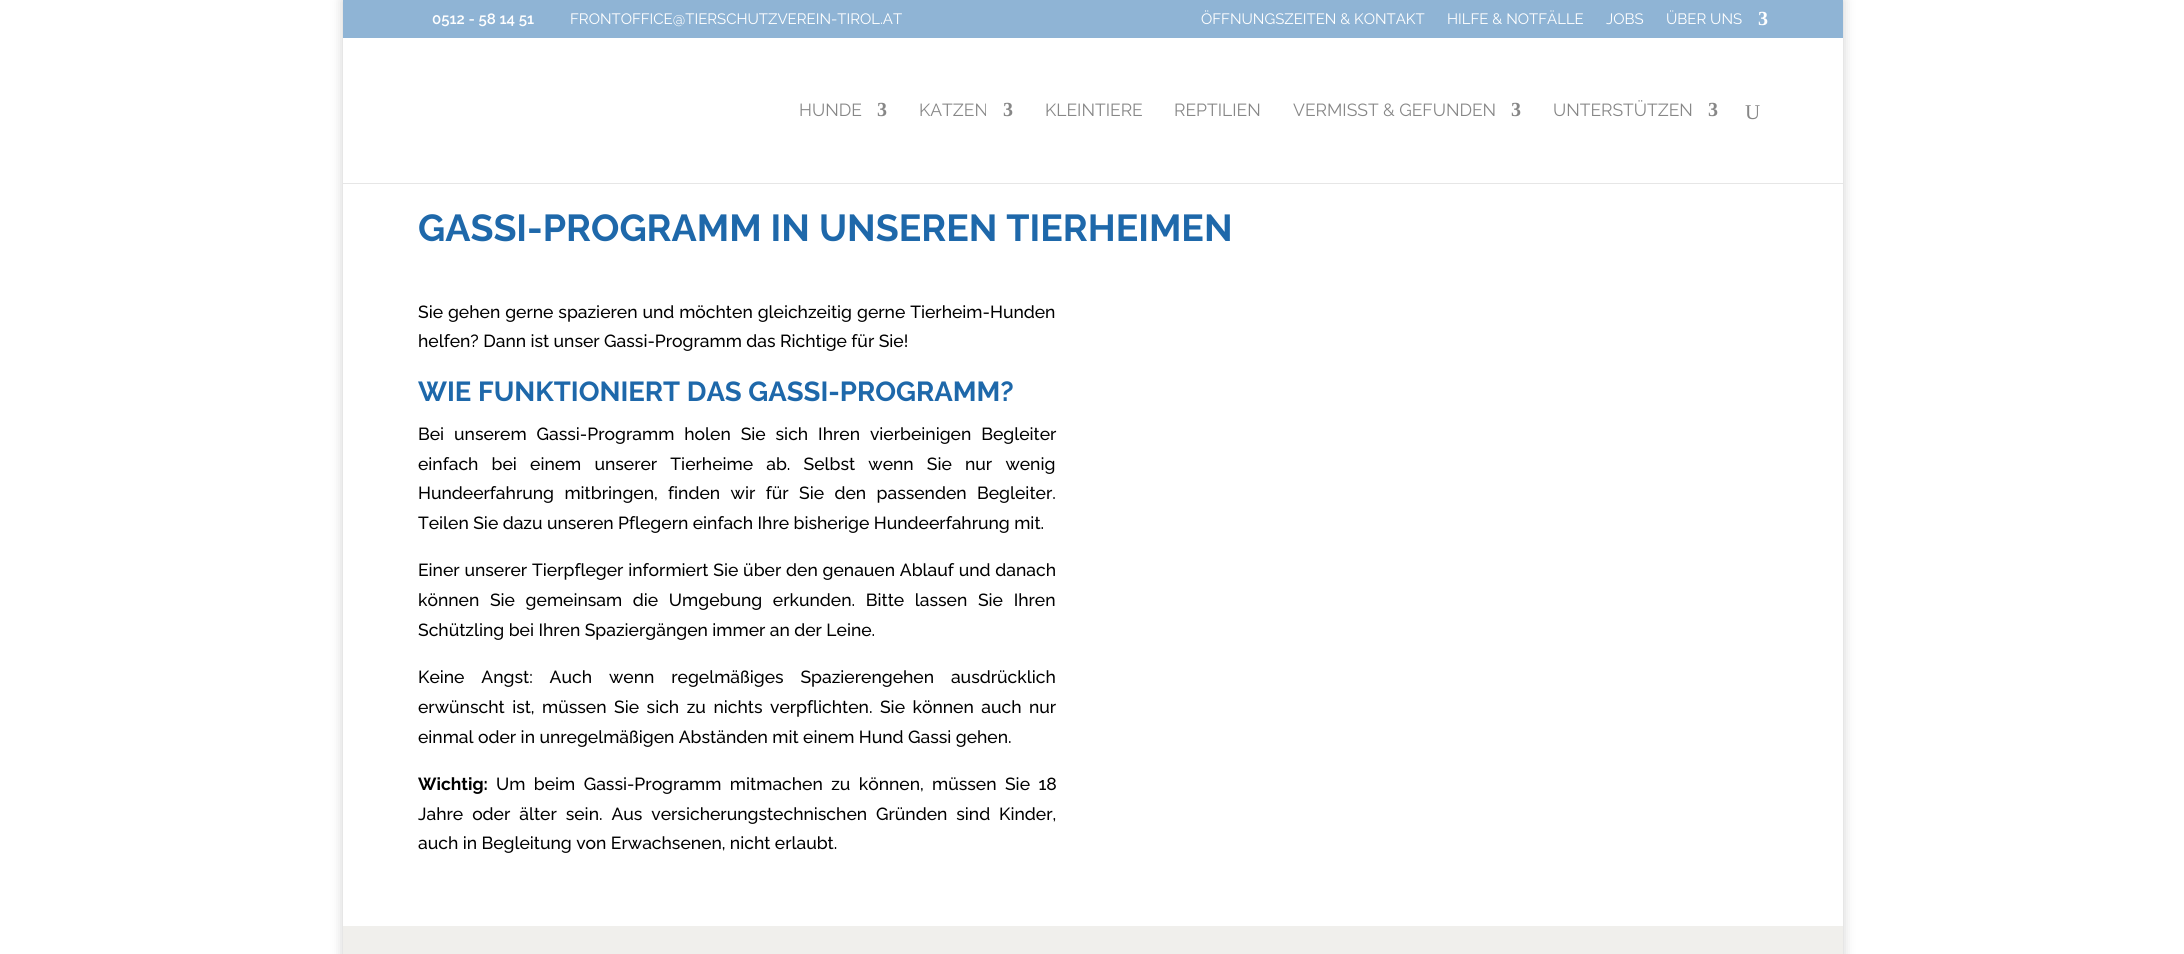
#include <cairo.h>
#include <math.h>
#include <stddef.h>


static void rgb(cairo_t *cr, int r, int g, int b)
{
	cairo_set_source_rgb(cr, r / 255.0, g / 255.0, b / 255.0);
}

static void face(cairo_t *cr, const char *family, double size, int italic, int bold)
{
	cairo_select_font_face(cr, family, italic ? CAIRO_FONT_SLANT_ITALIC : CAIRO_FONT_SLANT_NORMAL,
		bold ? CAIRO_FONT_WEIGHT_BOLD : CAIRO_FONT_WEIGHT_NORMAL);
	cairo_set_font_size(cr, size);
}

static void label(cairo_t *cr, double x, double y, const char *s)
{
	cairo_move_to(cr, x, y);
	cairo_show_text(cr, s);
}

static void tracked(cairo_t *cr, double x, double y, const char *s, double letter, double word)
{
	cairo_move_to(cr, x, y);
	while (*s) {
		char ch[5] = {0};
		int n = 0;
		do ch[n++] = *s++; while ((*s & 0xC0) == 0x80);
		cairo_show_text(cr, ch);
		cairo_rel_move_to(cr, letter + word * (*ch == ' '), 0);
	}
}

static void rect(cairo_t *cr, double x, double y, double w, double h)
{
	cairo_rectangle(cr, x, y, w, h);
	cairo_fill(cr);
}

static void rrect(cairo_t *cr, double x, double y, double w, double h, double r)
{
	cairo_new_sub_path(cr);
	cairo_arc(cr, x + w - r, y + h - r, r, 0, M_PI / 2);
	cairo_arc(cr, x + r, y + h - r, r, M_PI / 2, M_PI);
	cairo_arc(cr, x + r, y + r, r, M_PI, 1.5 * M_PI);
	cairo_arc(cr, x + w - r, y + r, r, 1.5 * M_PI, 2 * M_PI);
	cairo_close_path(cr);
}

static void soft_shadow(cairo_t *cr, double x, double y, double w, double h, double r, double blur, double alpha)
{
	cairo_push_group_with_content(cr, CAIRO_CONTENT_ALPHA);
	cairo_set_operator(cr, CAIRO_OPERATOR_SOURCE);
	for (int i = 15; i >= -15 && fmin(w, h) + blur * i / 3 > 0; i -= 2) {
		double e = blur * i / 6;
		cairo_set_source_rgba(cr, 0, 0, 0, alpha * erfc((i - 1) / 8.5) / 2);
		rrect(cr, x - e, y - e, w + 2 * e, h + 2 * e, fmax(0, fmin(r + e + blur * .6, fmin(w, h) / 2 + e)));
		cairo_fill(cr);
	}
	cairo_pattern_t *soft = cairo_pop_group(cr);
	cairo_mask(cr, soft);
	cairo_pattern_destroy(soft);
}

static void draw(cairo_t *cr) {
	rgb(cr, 255, 255, 255);
	cairo_paint(cr);
	rgb(cr, 0, 0, 0);
	soft_shadow(cr, 343, 0, 1500, 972, 0, 6, 0.2);
	rgb(cr, 143, 180, 213);
	rect(cr, 343, 0, 1500, 38);
	face(cr, "Raleway SemiBold", 15, 0, 0);
	rgb(cr, 255, 255, 255);
	label(cr, 432, 24, "0512 - 58 14 51");
	face(cr, "Raleway", 15, 0, 0);
	label(cr, 570, 24, "FRONTOFFICE@TIERSCHUTZVEREIN-TIROL.AT");
	label(cr, 1201, 24, "ÖFFNUNGSZEITEN & KONTAKT");
	label(cr, 1447, 24, "HILFE & NOTFÄLLE");
	label(cr, 1606, 24, "JOBS");
	label(cr, 1666, 24, "ÜBER UNS");
	face(cr, "Liberation Serif", 20, 0, 1);
	label(cr, 1758, 25, "3");
	rect(cr, 343, 183, 1500, 743);
	cairo_set_source_rgba(cr, 0, 0, 0, 0.1);
	cairo_new_path(cr);
	cairo_move_to(cr, 343, 182);
	cairo_line_to(cr, 343, 184);
	cairo_line_to(cr, 1843, 184);
	cairo_line_to(cr, 1843, 39);
	cairo_line_to(cr, 1842, 39);
	cairo_line_to(cr, 1842, 182);
	cairo_close_path(cr);
	cairo_fill(cr);
	rgb(cr, 255, 255, 255);
	rect(cr, 343, 38, 1500, 145);
	face(cr, "Raleway", 17.5, 0, 0);
	rgb(cr, 135, 135, 135);
	label(cr, 799, 116, "HUNDE");
	face(cr, "Liberation Serif", 20, 0, 1);
	label(cr, 877, 116, "3");
	face(cr, "Raleway", 17.5, 0, 0);
	label(cr, 919, 116, "KATZEN");
	face(cr, "Liberation Serif", 20, 0, 1);
	label(cr, 1003, 116, "3");
	face(cr, "Raleway", 17.5, 0, 0);
	label(cr, 1045, 116, "KLEINTIERE");
	label(cr, 1174, 116, "REPTILIEN");
	label(cr, 1293, 116, "VERMISST & GEFUNDEN");
	face(cr, "Liberation Serif", 20, 0, 1);
	label(cr, 1511, 116, "3");
	face(cr, "Raleway", 17.5, 0, 0);
	label(cr, 1553, 116, "UNTERSTÜTZEN");
	face(cr, "Liberation Serif", 20, 0, 1);
	label(cr, 1708, 116, "3");
	face(cr, "Liberation Serif", 21, 0, 0);
	label(cr, 1745, 119, "U");
	face(cr, "Raleway", 37.5, 0, 1);
	rgb(cr, 30, 104, 170);
	label(cr, 418, 241, "GASSI-PROGRAMM IN UNSEREN TIERHEIMEN");
	face(cr, "Raleway Medium", 17.5, 0, 0);
	rgb(cr, 0, 0, 0);
	tracked(cr, 418, 318, "Sie gehen gerne spazieren und möchten gleichzeitig gerne Tierheim-Hunden", 0, 0.5);
	label(cr, 418, 347, "helfen? Dann ist unser Gassi-Programm das Richtige für Sie!");
	face(cr, "Raleway", 27.5, 0, 1);
	rgb(cr, 30, 104, 170);
	label(cr, 418, 401, "WIE FUNKTIONIERT DAS GASSI-PROGRAMM?");
	face(cr, "Raleway Medium", 17.5, 0, 0);
	rgb(cr, 0, 0, 0);
	tracked(cr, 418, 440, "Bei unserem Gassi-Programm holen Sie sich Ihren vierbeinigen Begleiter", 0, 5.5);
	tracked(cr, 418, 470, "einfach bei einem unserer Tierheime ab. Selbst wenn Sie nur wenig", 0, 8.75);
	tracked(cr, 418, 499, "Hundeerfahrung mitbringen, finden wir für Sie den passenden Begleiter.", 0, 6);
	label(cr, 418, 529, "Teilen Sie dazu unseren Pflegern einfach Ihre bisherige Hundeerfahrung mit.");
	tracked(cr, 418, 576, "Einer unserer Tierpfleger informiert Sie über den genauen Ablauf und danach", 0, 0.4);
	tracked(cr, 418, 606, "können Sie gemeinsam die Umgebung erkunden. Bitte lassen Sie Ihren", 0, 6.25);
	label(cr, 418, 636, "Schützling bei Ihren Spaziergängen immer an der Leine.");
	tracked(cr, 418, 683, "Keine Angst: Auch wenn regelmäßiges Spazierengehen ausdrücklich", 0, 12.5);
	tracked(cr, 418, 713, "erwünscht ist, müssen Sie sich zu nichts verpflichten. Sie können auch nur", 0, 3.1);
	label(cr, 418, 743, "einmal oder in unregelmäßigen Abständen mit einem Hund Gassi gehen.");
	face(cr, "Raleway", 17.5, 0, 1);
	label(cr, 418, 790, "Wichtig:");
	face(cr, "Raleway Medium", 17.5, 0, 0);
	tracked(cr, 496, 790, "Um beim Gassi-Programm mitmachen zu können, müssen Sie 18", 0, 4);
	tracked(cr, 418, 820, "Jahre oder älter sein. Aus versicherungstechnischen Gründen sind Kinder,", 0, 4.5);
	label(cr, 418, 849, "auch in Begleitung von Erwachsenen, nicht erlaubt.");
	rgb(cr, 240, 239, 236);
	rect(cr, 343, 926, 1500, 28);
}

int main(void) {
	cairo_surface_t *surface = cairo_image_surface_create(CAIRO_FORMAT_RGB24, 2184, 954);
	cairo_t *cr = cairo_create(surface);
	cairo_font_options_t *options = cairo_font_options_create();
	cairo_font_options_set_hint_metrics(options, CAIRO_HINT_METRICS_OFF);
	cairo_font_options_set_hint_style(options, CAIRO_HINT_STYLE_NONE);
	cairo_set_font_options(cr, options);
	cairo_set_miter_limit(cr, 4);
	draw(cr);
	cairo_surface_write_to_png(surface, "render.png");
	cairo_font_options_destroy(options);
	cairo_destroy(cr);
	cairo_surface_destroy(surface);
	return 0;
}
